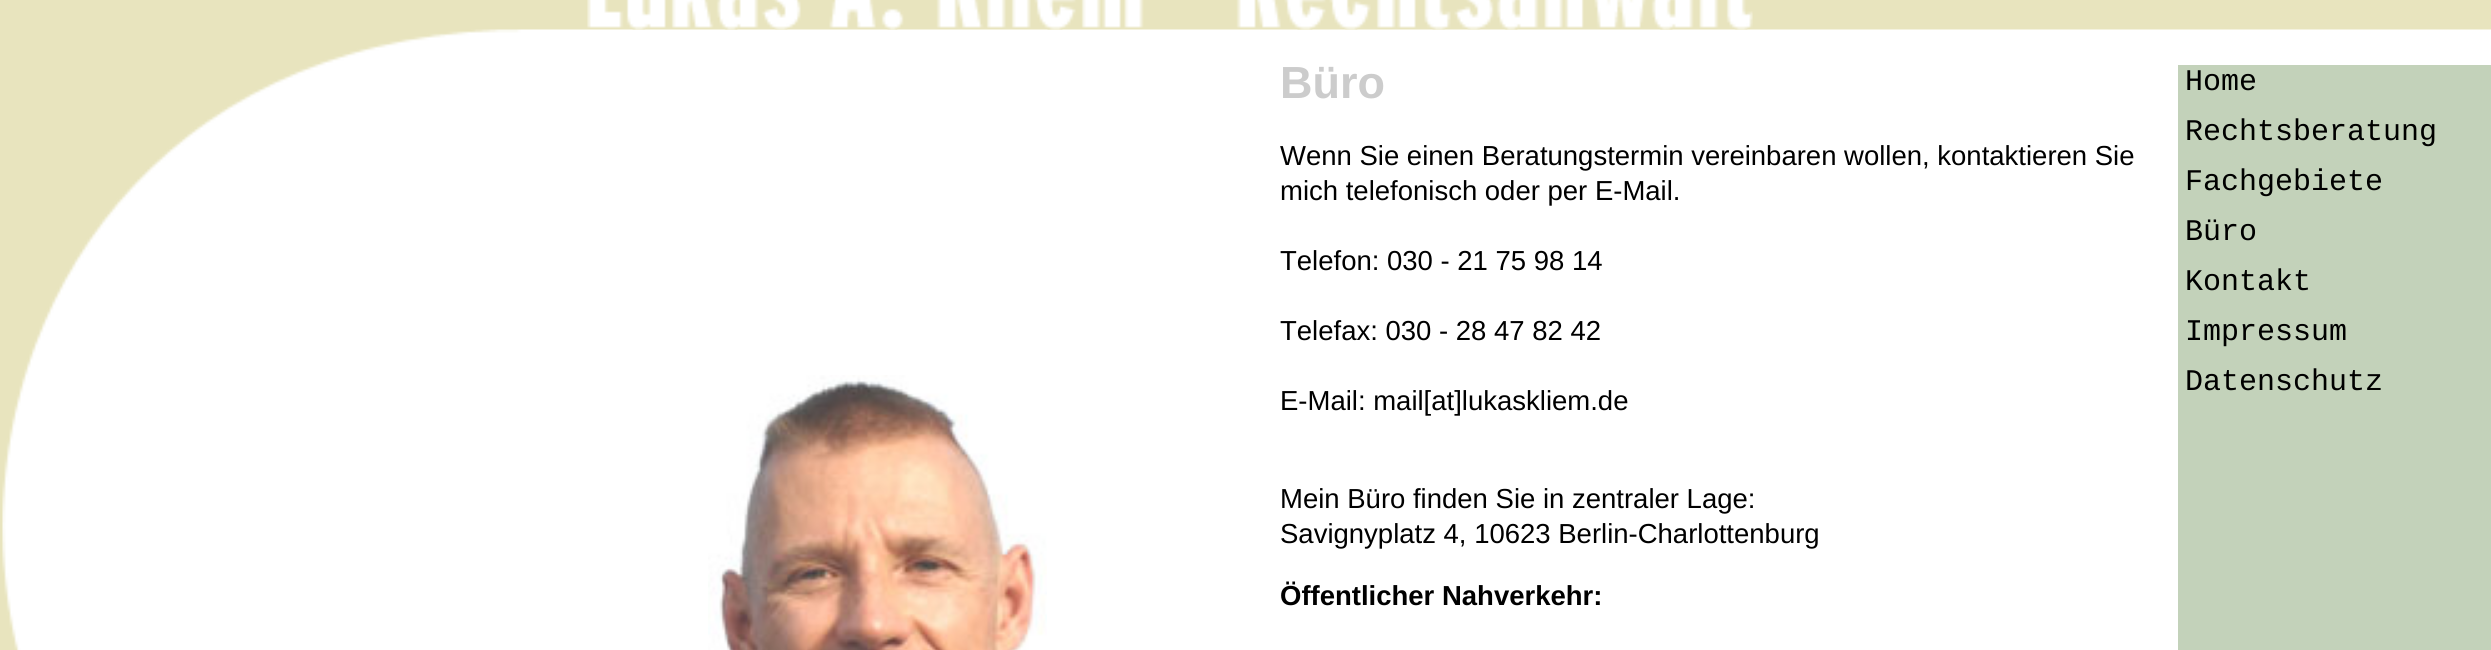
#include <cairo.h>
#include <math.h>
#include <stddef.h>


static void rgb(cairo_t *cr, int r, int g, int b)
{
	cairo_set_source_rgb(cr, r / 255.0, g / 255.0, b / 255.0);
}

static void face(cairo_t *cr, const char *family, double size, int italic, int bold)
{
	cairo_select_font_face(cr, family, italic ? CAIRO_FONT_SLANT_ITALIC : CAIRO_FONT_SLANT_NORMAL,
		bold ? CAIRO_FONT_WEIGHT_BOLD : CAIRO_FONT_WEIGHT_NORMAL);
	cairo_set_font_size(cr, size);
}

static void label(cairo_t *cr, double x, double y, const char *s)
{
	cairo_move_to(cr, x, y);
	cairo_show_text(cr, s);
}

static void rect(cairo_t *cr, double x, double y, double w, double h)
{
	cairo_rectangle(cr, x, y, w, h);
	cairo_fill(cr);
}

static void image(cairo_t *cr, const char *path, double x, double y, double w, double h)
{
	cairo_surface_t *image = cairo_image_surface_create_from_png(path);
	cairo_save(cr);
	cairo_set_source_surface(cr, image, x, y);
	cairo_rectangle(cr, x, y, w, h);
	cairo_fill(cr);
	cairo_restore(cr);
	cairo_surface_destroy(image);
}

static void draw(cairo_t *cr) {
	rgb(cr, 232, 228, 190);
	cairo_paint(cr);
	image(cr, "image1.png", 2, 29, 2489, 621);
	image(cr, "image0.png", 587, 0, 1166, 30);
	image(cr, "image2.png", 708, 375, 339, 275);
	face(cr, "Liberation Sans", 45, 0, 1);
	rgb(cr, 204, 204, 204);
	label(cr, 1280, 98, "Büro");
	face(cr, "Liberation Sans", 27.5, 0, 0);
	rgb(cr, 0, 0, 0);
	label(cr, 1280, 165, "Wenn Sie einen Beratungstermin vereinbaren wollen, kontaktieren Sie");
	label(cr, 1280, 200, "mich telefonisch oder per E-Mail.");
	label(cr, 1280, 270, "Telefon: 030 - 21 75 98 14");
	label(cr, 1280, 340, "Telefax: 030 - 28 47 82 42");
	label(cr, 1280, 410, "E-Mail: mail[at]lukaskliem.de");
	label(cr, 1280, 508, "Mein Büro finden Sie in zentraler Lage:");
	label(cr, 1280, 543, "Savignyplatz 4, 10623 Berlin-Charlottenburg");
	face(cr, "Liberation Sans", 27.5, 0, 1);
	label(cr, 1280, 605, "Öffentlicher Nahverkehr:");
	rgb(cr, 195, 210, 186);
	rect(cr, 2178, 65, 313, 585);
	face(cr, "Liberation Mono", 30, 0, 0);
	rgb(cr, 0, 0, 0);
	label(cr, 2185, 90, "Home");
	label(cr, 2185, 140, "Rechtsberatung");
	label(cr, 2185, 190, "Fachgebiete");
	label(cr, 2185, 240, "Büro");
	label(cr, 2185, 290, "Kontakt");
	label(cr, 2185, 340, "Impressum");
	label(cr, 2185, 390, "Datenschutz");
}

int main(void) {
	cairo_surface_t *surface = cairo_image_surface_create(CAIRO_FORMAT_RGB24, 2491, 650);
	cairo_t *cr = cairo_create(surface);
	cairo_font_options_t *options = cairo_font_options_create();
	cairo_font_options_set_hint_metrics(options, CAIRO_HINT_METRICS_OFF);
	cairo_font_options_set_hint_style(options, CAIRO_HINT_STYLE_NONE);
	cairo_set_font_options(cr, options);
	cairo_set_miter_limit(cr, 4);
	draw(cr);
	cairo_surface_write_to_png(surface, "render.png");
	cairo_font_options_destroy(options);
	cairo_destroy(cr);
	cairo_surface_destroy(surface);
	return 0;
}
